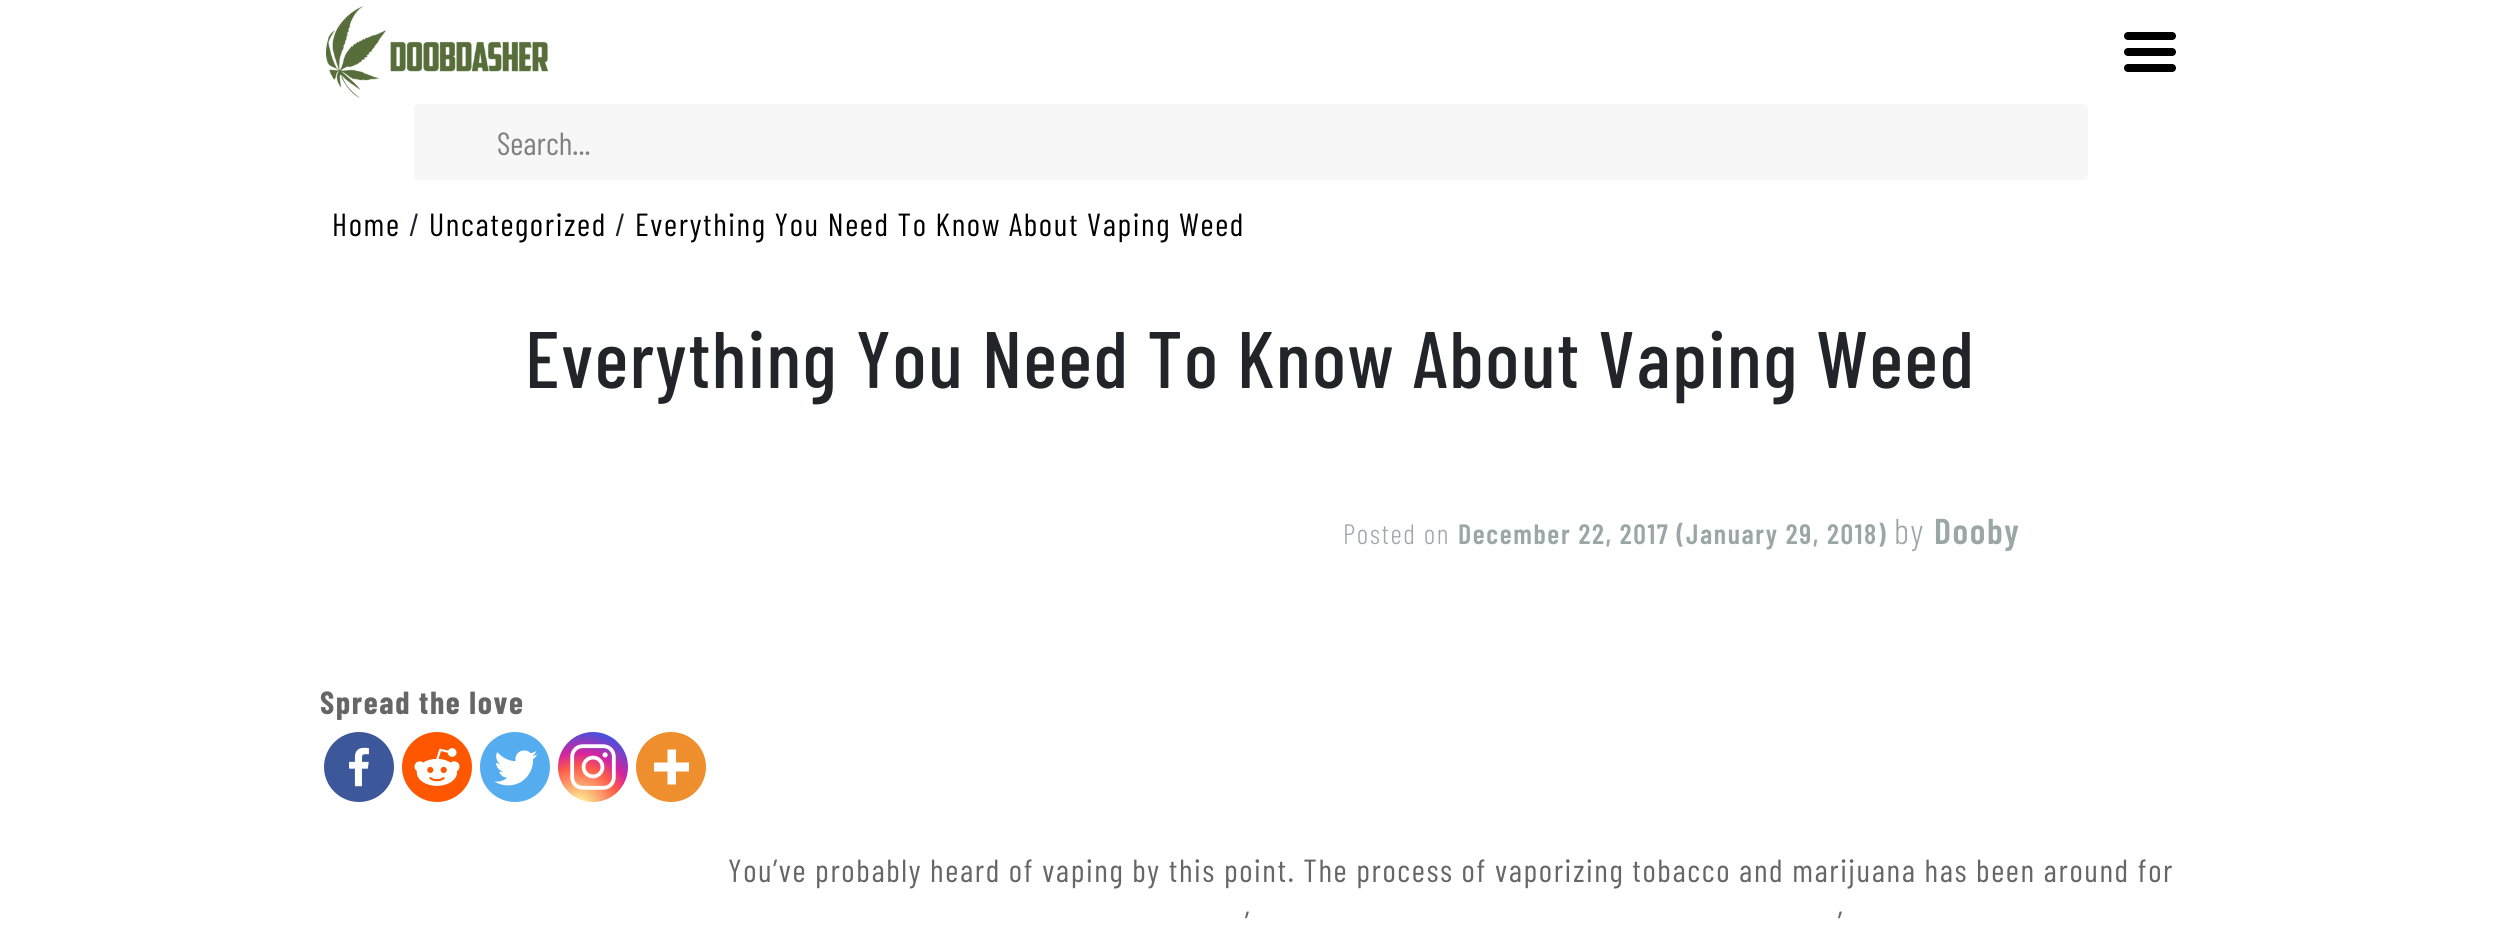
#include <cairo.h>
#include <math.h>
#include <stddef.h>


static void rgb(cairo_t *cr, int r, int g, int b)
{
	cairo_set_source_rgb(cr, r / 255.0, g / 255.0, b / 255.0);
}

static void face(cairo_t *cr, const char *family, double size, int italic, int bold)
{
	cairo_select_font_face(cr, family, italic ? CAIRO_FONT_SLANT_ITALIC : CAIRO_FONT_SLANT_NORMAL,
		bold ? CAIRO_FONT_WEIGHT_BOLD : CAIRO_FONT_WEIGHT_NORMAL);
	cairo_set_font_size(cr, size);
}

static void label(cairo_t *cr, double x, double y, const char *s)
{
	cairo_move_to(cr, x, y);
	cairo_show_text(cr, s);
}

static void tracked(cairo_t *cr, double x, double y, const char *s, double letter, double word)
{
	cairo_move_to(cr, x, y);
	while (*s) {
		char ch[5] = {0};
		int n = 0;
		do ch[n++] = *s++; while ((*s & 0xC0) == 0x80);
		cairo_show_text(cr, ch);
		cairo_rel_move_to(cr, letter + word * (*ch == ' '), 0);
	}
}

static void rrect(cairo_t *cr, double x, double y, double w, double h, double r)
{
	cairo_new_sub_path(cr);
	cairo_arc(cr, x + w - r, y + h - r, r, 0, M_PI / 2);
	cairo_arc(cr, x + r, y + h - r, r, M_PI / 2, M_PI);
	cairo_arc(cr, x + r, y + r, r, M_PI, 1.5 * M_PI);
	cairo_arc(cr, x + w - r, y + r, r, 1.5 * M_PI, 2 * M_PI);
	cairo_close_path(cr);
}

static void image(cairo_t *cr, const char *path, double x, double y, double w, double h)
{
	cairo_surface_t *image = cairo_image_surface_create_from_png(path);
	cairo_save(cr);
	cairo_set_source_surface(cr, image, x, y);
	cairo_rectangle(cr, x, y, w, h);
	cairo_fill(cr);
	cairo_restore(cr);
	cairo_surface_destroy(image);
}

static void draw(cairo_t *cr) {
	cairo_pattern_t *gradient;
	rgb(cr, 255, 255, 255);
	cairo_paint(cr);
	image(cr, "image0.png", 326, 6, 222, 92);
	cairo_new_path(cr);
	cairo_move_to(cr, 2128, 36);
	cairo_line_to(cr, 2172, 36);
	cairo_move_to(cr, 2128, 52);
	cairo_line_to(cr, 2172, 52);
	cairo_move_to(cr, 2128, 68);
	cairo_line_to(cr, 2172, 68);
	rgb(cr, 0, 0, 0);
	cairo_set_line_width(cr, 8);
	cairo_set_line_cap(cr, CAIRO_LINE_CAP_ROUND);
	cairo_stroke(cr);
	rgb(cr, 247, 247, 247);
	rrect(cr, 414, 104, 1674, 76, 4);
	cairo_fill(cr);
	face(cr, "Barlow Condensed", 32, 0, 0);
	rgb(cr, 128, 128, 128);
	label(cr, 497, 155, "Search...");
	rgb(cr, 0, 0, 0);
	tracked(cr, 332, 236, "Home", 1.6, 0);
	rgb(cr, 33, 37, 41);
	tracked(cr, 409, 236, "/", 1.6, 0);
	rgb(cr, 0, 0, 0);
	tracked(cr, 429, 236, "Uncategorized", 1.6, 0);
	rgb(cr, 33, 37, 41);
	tracked(cr, 615, 236, "/", 1.6, 0);
	rgb(cr, 0, 0, 0);
	tracked(cr, 635, 236, "Everything You Need To Know About Vaping Weed", 1.6, 0);
	face(cr, "Barlow Condensed Medium", 80, 0, 0);
	rgb(cr, 33, 37, 41);
	tracked(cr, 525, 388, "Everything You Need To Know About Vaping Weed", 1.6, 0);
	face(cr, "Barlow Condensed Light", 28, 0, 0);
	rgb(cr, 155, 167, 166);
	tracked(cr, 1343, 544, "Posted on", 1.6, 0);
	face(cr, "Barlow Condensed SemiBold", 28, 0, 0);
	tracked(cr, 1458, 544, "December 22, 2017 (January 29, 2018)", 1.6, 0);
	face(cr, "Barlow Condensed Light", 36, 0, 0);
	tracked(cr, 1894, 544, "by", 1.6, 0);
	face(cr, "Barlow Condensed SemiBold", 36, 0, 0);
	tracked(cr, 1934, 544, "Dooby", 1.6, 0);
	face(cr, "Barlow Condensed", 32, 0, 1);
	rgb(cr, 102, 102, 102);
	tracked(cr, 320, 714, "Spread the love", 1.6, 0);
	rgb(cr, 60, 88, 154);
	cairo_new_path(cr);
	cairo_arc(cr, 359, 767, 35, 0, 2 * M_PI);
	cairo_fill(cr);
	image(cr, "image1.png", 349, 747, 20, 40);
	rgb(cr, 255, 87, 0);
	cairo_arc(cr, 437, 767, 35, 0, 2 * M_PI);
	cairo_fill(cr);
	image(cr, "image2.png", 414, 748, 46, 38);
	rgb(cr, 85, 172, 238);
	cairo_arc(cr, 515, 767, 35, 0, 2 * M_PI);
	cairo_fill(cr);
	image(cr, "image3.png", 494, 750, 44, 36);
	gradient = cairo_pattern_create_radial(579, 807, 0, 579, 807, 90);
	cairo_pattern_add_color_stop_rgba(gradient, 0, 0.992, 0.957, 0.592, 1);
	cairo_pattern_add_color_stop_rgba(gradient, 0.05, 0.992, 0.957, 0.592, 1);
	cairo_pattern_add_color_stop_rgba(gradient, 0.45, 0.992, 0.349, 0.286, 1);
	cairo_pattern_add_color_stop_rgba(gradient, 0.6, 0.839, 0.141, 0.624, 1);
	cairo_pattern_add_color_stop_rgba(gradient, 0.9, 0.157, 0.353, 0.922, 1);
	cairo_set_source(cr, gradient);
	cairo_pattern_destroy(gradient);
	cairo_arc(cr, 593, 767, 35, 0, 2 * M_PI);
	cairo_fill(cr);
	image(cr, "image4.png", 570, 744, 46, 46);
	rgb(cr, 238, 142, 45);
	cairo_arc(cr, 671, 767, 35, 0, 2 * M_PI);
	cairo_fill(cr);
	rgb(cr, 255, 255, 255);
	cairo_set_fill_rule(cr, CAIRO_FILL_RULE_EVEN_ODD);
	cairo_new_path(cr);
	cairo_move_to(cr, 676, 762.5);
	cairo_line_to(cr, 676, 749.5);
	cairo_line_to(cr, 667.5, 749.5);
	cairo_line_to(cr, 667.5, 762.5);
	cairo_line_to(cr, 654, 762.5);
	cairo_line_to(cr, 654, 771.5);
	cairo_line_to(cr, 667.5, 771.5);
	cairo_line_to(cr, 667.5, 784.5);
	cairo_line_to(cr, 676, 784.5);
	cairo_line_to(cr, 676, 771.5);
	cairo_line_to(cr, 689, 771.5);
	cairo_line_to(cr, 689, 762.5);
	cairo_close_path(cr);
	cairo_fill(cr);
	face(cr, "Barlow Condensed", 32, 0, 0);
	rgb(cr, 102, 102, 102);
	tracked(cr, 728, 882, "You’ve probably heard of vaping by this point. The process of vaporizing tobacco and marijuana has been around for", 1.6, 0);
	tracked(cr, 1245, 934, "’", 1.6, 0);
	tracked(cr, 1838, 934, "’", 1.6, 0);
}

int main(void) {
	cairo_surface_t *surface = cairo_image_surface_create(CAIRO_FORMAT_RGB24, 2499, 927);
	cairo_t *cr = cairo_create(surface);
	cairo_font_options_t *options = cairo_font_options_create();
	cairo_font_options_set_hint_metrics(options, CAIRO_HINT_METRICS_OFF);
	cairo_font_options_set_hint_style(options, CAIRO_HINT_STYLE_NONE);
	cairo_set_font_options(cr, options);
	cairo_set_miter_limit(cr, 4);
	draw(cr);
	cairo_surface_write_to_png(surface, "render.png");
	cairo_font_options_destroy(options);
	cairo_destroy(cr);
	cairo_surface_destroy(surface);
	return 0;
}
